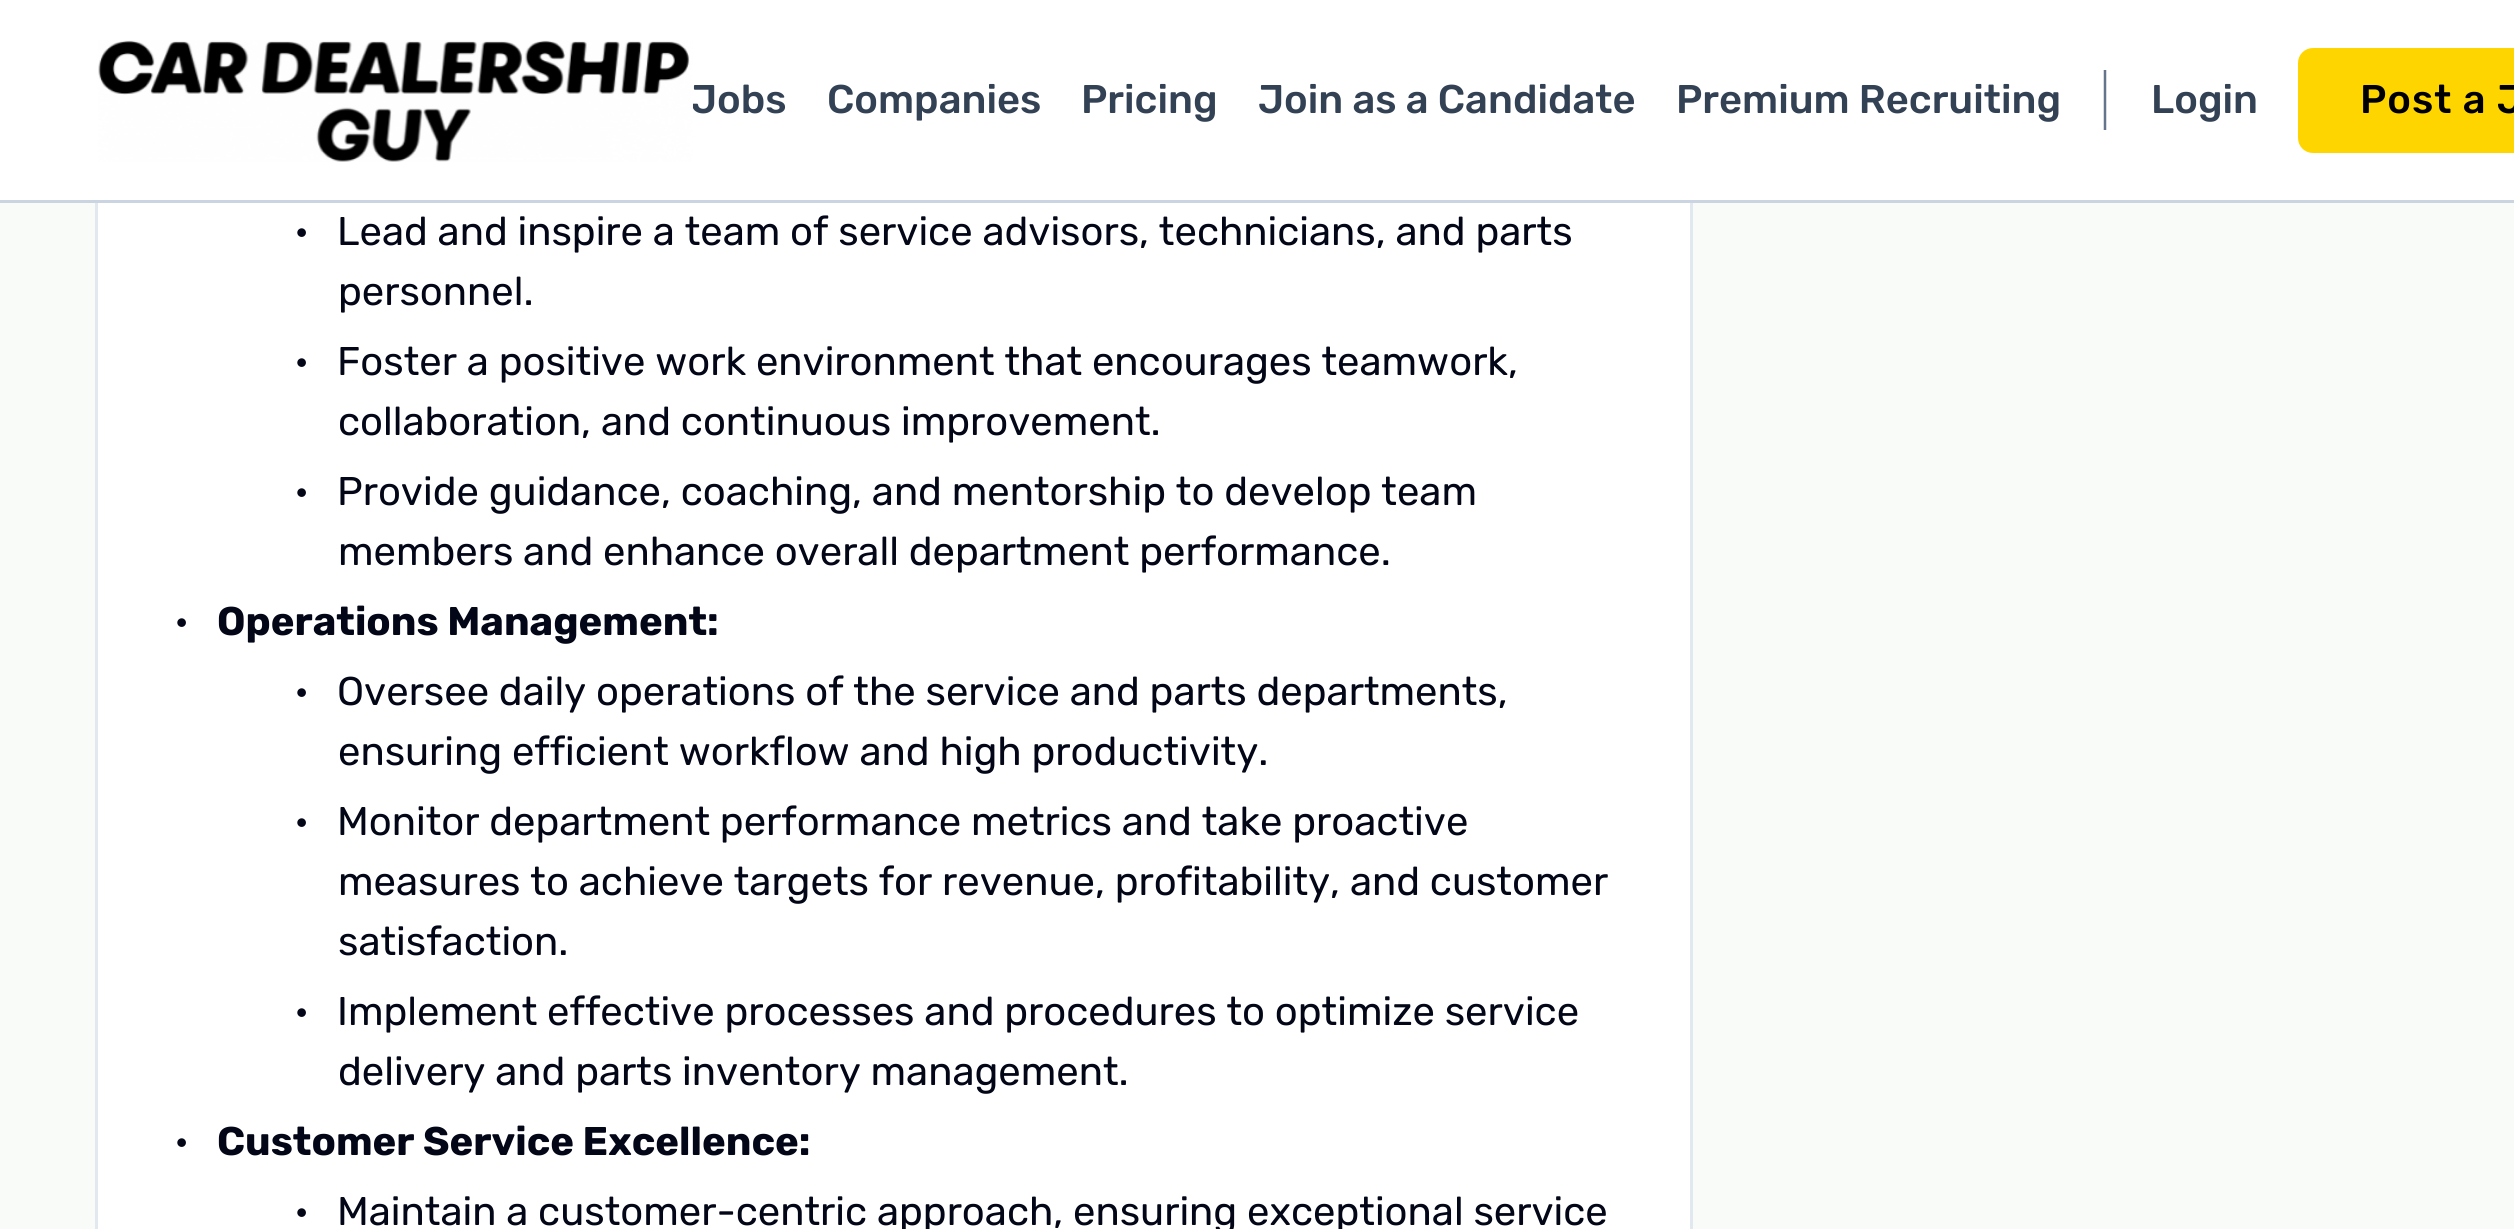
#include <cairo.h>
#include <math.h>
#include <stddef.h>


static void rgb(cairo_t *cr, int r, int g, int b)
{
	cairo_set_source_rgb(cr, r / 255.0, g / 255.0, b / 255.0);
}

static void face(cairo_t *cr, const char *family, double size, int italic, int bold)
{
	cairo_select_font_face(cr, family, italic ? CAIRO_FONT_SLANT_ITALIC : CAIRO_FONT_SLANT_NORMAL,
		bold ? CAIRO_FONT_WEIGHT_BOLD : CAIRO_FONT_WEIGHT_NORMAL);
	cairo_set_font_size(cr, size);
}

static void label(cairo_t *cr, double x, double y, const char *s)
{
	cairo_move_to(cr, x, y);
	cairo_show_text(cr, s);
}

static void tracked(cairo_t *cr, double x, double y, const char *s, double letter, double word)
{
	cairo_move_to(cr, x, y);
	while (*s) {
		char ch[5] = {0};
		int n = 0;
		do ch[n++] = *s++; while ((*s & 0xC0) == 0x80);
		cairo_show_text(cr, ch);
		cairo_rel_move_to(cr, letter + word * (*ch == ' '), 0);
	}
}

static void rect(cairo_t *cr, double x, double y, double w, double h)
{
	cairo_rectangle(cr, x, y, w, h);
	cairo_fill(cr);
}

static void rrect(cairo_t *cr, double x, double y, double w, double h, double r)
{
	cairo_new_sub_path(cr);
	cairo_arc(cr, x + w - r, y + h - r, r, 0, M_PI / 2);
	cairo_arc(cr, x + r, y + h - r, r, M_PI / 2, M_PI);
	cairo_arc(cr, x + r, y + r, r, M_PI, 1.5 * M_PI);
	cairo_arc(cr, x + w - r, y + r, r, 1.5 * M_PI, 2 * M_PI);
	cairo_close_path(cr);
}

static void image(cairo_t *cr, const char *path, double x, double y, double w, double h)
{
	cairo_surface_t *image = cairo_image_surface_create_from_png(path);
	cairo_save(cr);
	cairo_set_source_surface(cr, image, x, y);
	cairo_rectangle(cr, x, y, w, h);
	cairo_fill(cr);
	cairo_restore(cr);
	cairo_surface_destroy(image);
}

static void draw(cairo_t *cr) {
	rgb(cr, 249, 251, 249);
	cairo_paint(cr);
	rgb(cr, 255, 255, 255);
	rect(cr, 98, 203, 1592, 1026);
	cairo_rectangle(cr, 96.5, -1.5, 1595, 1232);
	rgb(cr, 226, 232, 240);
	cairo_set_line_width(cr, 3);
	cairo_stroke(cr);
	rgb(cr, 255, 255, 255);
	rect(cr, 0, 0, 2514, 200);
	rgb(cr, 203, 213, 225);
	rect(cr, 0, 200, 2514, 3);
	face(cr, "Rubik Medium", 40, 0, 0);
	rgb(cr, 51, 65, 85);
	label(cr, 691, 113, "Jobs");
	image(cr, "image0.png", 98, 40, 595, 122);
	label(cr, 827, 113, "Companies");
	label(cr, 1081, 113, "Pricing");
	label(cr, 1258, 113, "Join as a Candidate");
	label(cr, 1676, 113, "Premium Recruiting");
	cairo_new_path(cr);
	cairo_move_to(cr, 2105, 70);
	cairo_line_to(cr, 2105, 130);
	rgb(cr, 100, 116, 139);
	cairo_set_line_width(cr, 2.5);
	cairo_stroke(cr);
	rgb(cr, 51, 65, 85);
	label(cr, 2151, 113, "Login");
	rgb(cr, 255, 213, 0);
	rrect(cr, 2299.5, 49.5, 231, 102, 13.5);
	cairo_fill_preserve(cr);
	cairo_set_line_width(cr, 3);
	cairo_stroke(cr);
	rgb(cr, 0, 0, 0);
	tracked(cr, 2360, 113, "Post a J", 1, 0);
	face(cr, "Rubik", 40, 0, 0);
	rgb(cr, 2, 6, 23);
	label(cr, 294, 245, "•");
	label(cr, 337, 245, "Lead and inspire a team of service advisors, technicians, and parts");
	label(cr, 338, 305, "personnel.");
	label(cr, 294, 375, "•");
	label(cr, 337, 375, "Foster a positive work environment that encourages teamwork,");
	label(cr, 338, 435, "collaboration, and continuous improvement.");
	label(cr, 294, 505, "•");
	label(cr, 337, 505, "Provide guidance, coaching, and mentorship to develop team");
	label(cr, 338, 565, "members and enhance overall department performance.");
	label(cr, 174, 635, "•");
	face(cr, "Rubik", 40, 0, 1);
	label(cr, 217, 635, "Operations Management:");
	face(cr, "Rubik", 40, 0, 0);
	label(cr, 294, 705, "•");
	label(cr, 337, 705, "Oversee daily operations of the service and parts departments,");
	label(cr, 338, 765, "ensuring efficient workflow and high productivity.");
	label(cr, 294, 835, "•");
	label(cr, 337, 835, "Monitor department performance metrics and take proactive");
	label(cr, 338, 895, "measures to achieve targets for revenue, profitability, and customer");
	label(cr, 338, 955, "satisfaction.");
	label(cr, 294, 1025, "•");
	label(cr, 337, 1025, "Implement effective processes and procedures to optimize service");
	label(cr, 338, 1085, "delivery and parts inventory management.");
	label(cr, 174, 1155, "•");
	face(cr, "Rubik", 40, 0, 1);
	label(cr, 217, 1155, "Customer Service Excellence:");
	face(cr, "Rubik", 40, 0, 0);
	label(cr, 294, 1225, "•");
	label(cr, 337, 1225, "Maintain a customer-centric approach, ensuring exceptional service");
}

int main(void) {
	cairo_surface_t *surface = cairo_image_surface_create(CAIRO_FORMAT_RGB24, 2514, 1229);
	cairo_t *cr = cairo_create(surface);
	cairo_font_options_t *options = cairo_font_options_create();
	cairo_font_options_set_hint_metrics(options, CAIRO_HINT_METRICS_OFF);
	cairo_font_options_set_hint_style(options, CAIRO_HINT_STYLE_NONE);
	cairo_set_font_options(cr, options);
	cairo_set_miter_limit(cr, 4);
	draw(cr);
	cairo_surface_write_to_png(surface, "render.png");
	cairo_font_options_destroy(options);
	cairo_destroy(cr);
	cairo_surface_destroy(surface);
	return 0;
}
